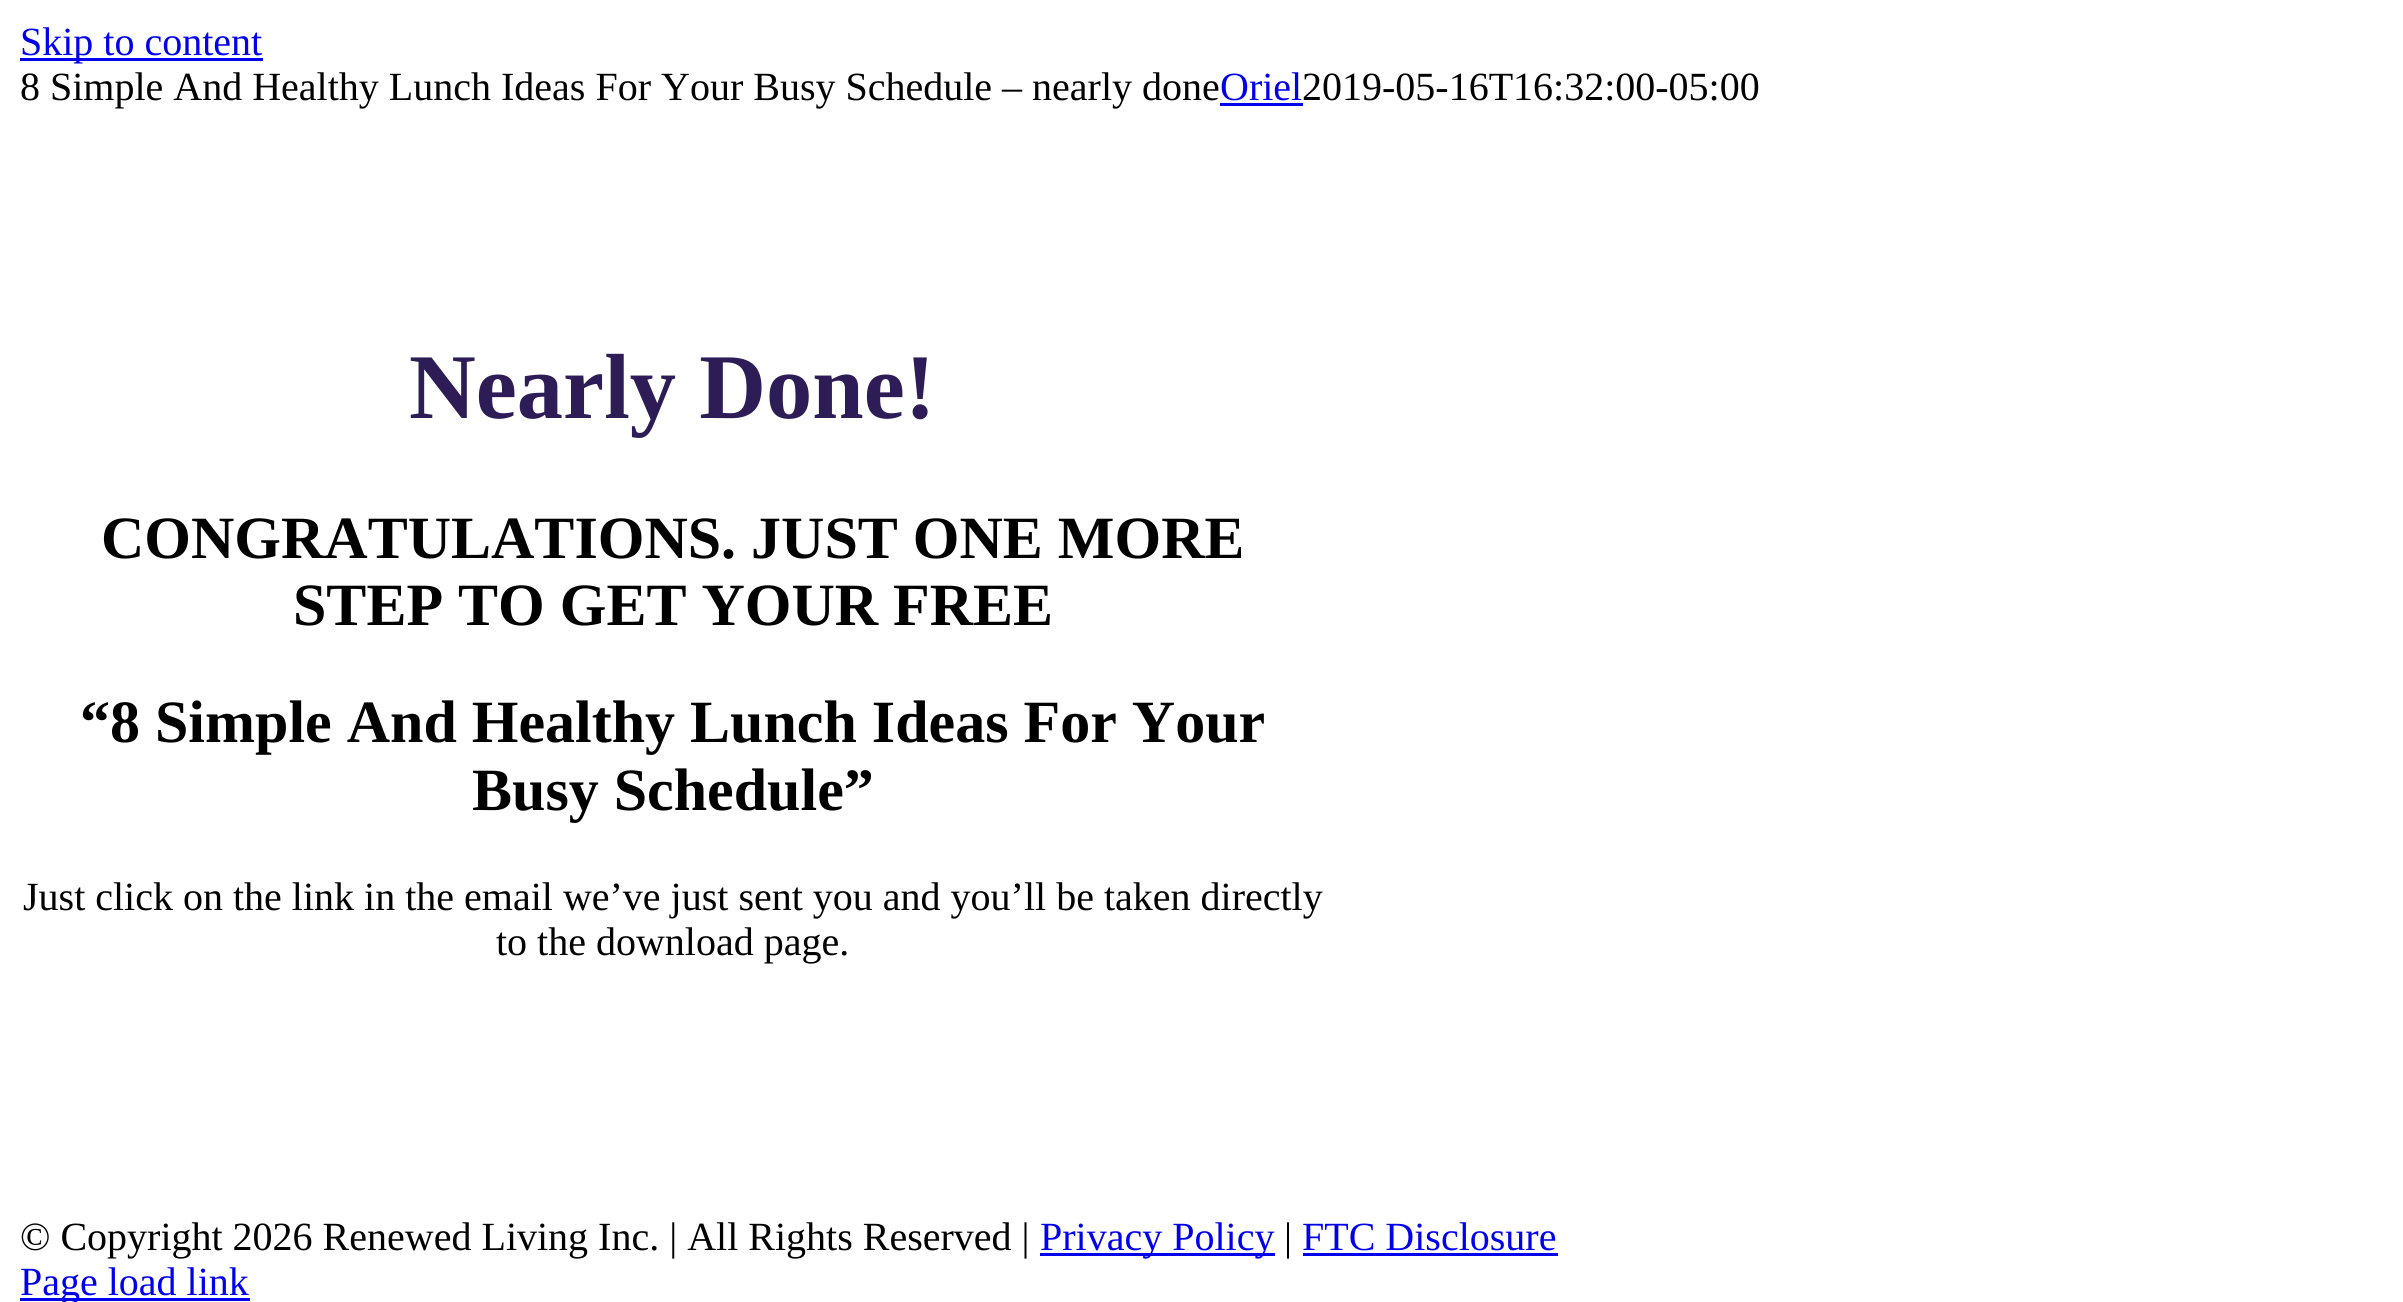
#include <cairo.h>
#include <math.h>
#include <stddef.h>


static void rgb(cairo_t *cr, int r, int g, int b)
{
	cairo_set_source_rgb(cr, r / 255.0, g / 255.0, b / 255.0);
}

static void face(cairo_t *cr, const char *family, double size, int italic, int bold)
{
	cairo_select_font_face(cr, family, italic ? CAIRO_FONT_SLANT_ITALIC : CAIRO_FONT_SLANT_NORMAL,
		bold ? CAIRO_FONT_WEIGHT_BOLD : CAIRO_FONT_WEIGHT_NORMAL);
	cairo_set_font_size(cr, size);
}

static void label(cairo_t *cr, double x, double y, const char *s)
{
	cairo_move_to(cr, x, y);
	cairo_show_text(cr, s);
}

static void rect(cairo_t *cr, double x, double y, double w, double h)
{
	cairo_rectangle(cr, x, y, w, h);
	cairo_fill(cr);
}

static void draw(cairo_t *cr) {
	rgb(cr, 255, 255, 255);
	cairo_paint(cr);
	rgb(cr, 0, 0, 238);
	rect(cr, 20, 58, 243, 3);
	face(cr, "Liberation Serif", 40, 0, 0);
	label(cr, 20, 55, "Skip to content");
	rgb(cr, 0, 0, 0);
	label(cr, 20, 100, "8 Simple And Healthy Lunch Ideas For Your Busy Schedule – nearly done");
	rgb(cr, 0, 0, 238);
	label(cr, 1220, 100, "Oriel");
	rect(cr, 1220, 103, 83, 3);
	rgb(cr, 0, 0, 0);
	label(cr, 1302, 100, "2019-05-16T16:32:00-05:00");
	face(cr, "Liberation Serif", 92.5, 0, 1);
	rgb(cr, 46, 28, 86);
	label(cr, 409, 418, "Nearly Done!");
	face(cr, "Liberation Serif", 60, 0, 1);
	rgb(cr, 0, 0, 0);
	label(cr, 101, 558, "CONGRATULATIONS. JUST ONE MORE");
	label(cr, 293, 625, "STEP TO GET YOUR FREE");
	label(cr, 80, 742, "“8 Simple And Healthy Lunch Ideas For Your");
	label(cr, 472, 810, "Busy Schedule”");
	face(cr, "Liberation Serif", 40, 0, 0);
	label(cr, 23, 910, "Just click on the link in the email we’ve just sent you and you’ll be taken directly");
	label(cr, 496, 955, "to the download page.");
	label(cr, 20, 1250, "© Copyright 2026 Renewed Living Inc. | All Rights Reserved |");
	rgb(cr, 0, 0, 238);
	rect(cr, 1040, 1253, 235, 3);
	label(cr, 1040, 1250, "Privacy Policy");
	rgb(cr, 0, 0, 0);
	label(cr, 1284, 1250, "|");
	rgb(cr, 0, 0, 238);
	label(cr, 1302, 1250, "FTC Disclosure");
	rect(cr, 1303, 1253, 255, 3);
	rect(cr, 20, 1298, 230, 3);
	label(cr, 20, 1295, "Page load link");
}

int main(void) {
	cairo_surface_t *surface = cairo_image_surface_create(CAIRO_FORMAT_RGB24, 2403, 1302);
	cairo_t *cr = cairo_create(surface);
	cairo_font_options_t *options = cairo_font_options_create();
	cairo_font_options_set_hint_metrics(options, CAIRO_HINT_METRICS_OFF);
	cairo_font_options_set_hint_style(options, CAIRO_HINT_STYLE_NONE);
	cairo_set_font_options(cr, options);
	cairo_set_miter_limit(cr, 4);
	draw(cr);
	cairo_surface_write_to_png(surface, "render.png");
	cairo_font_options_destroy(options);
	cairo_destroy(cr);
	cairo_surface_destroy(surface);
	return 0;
}
